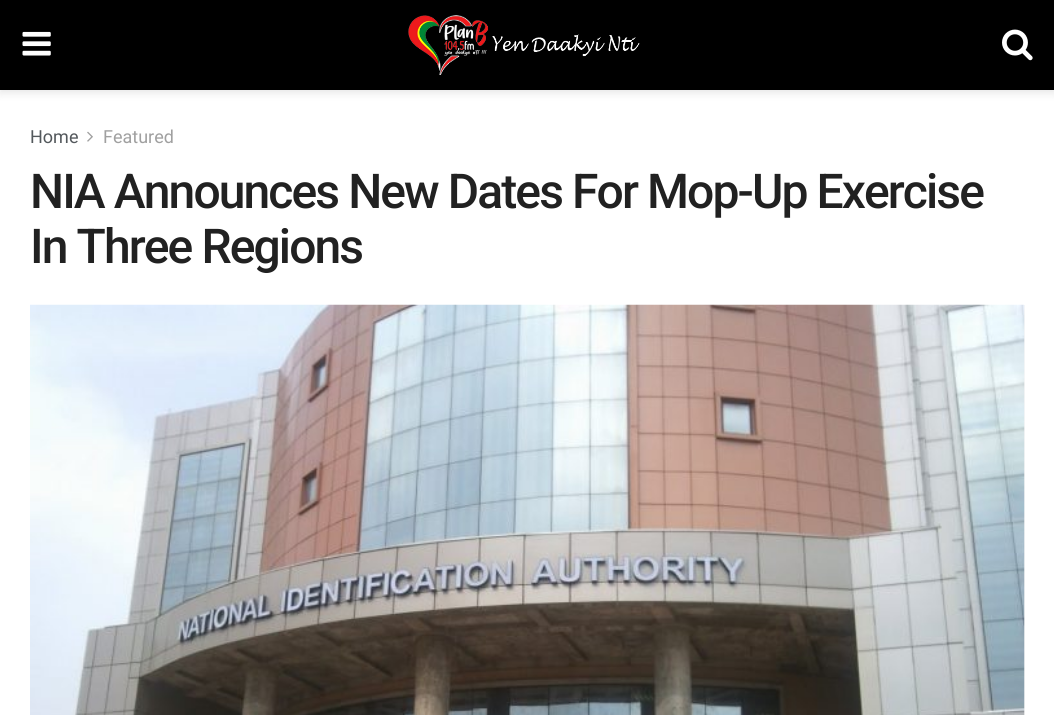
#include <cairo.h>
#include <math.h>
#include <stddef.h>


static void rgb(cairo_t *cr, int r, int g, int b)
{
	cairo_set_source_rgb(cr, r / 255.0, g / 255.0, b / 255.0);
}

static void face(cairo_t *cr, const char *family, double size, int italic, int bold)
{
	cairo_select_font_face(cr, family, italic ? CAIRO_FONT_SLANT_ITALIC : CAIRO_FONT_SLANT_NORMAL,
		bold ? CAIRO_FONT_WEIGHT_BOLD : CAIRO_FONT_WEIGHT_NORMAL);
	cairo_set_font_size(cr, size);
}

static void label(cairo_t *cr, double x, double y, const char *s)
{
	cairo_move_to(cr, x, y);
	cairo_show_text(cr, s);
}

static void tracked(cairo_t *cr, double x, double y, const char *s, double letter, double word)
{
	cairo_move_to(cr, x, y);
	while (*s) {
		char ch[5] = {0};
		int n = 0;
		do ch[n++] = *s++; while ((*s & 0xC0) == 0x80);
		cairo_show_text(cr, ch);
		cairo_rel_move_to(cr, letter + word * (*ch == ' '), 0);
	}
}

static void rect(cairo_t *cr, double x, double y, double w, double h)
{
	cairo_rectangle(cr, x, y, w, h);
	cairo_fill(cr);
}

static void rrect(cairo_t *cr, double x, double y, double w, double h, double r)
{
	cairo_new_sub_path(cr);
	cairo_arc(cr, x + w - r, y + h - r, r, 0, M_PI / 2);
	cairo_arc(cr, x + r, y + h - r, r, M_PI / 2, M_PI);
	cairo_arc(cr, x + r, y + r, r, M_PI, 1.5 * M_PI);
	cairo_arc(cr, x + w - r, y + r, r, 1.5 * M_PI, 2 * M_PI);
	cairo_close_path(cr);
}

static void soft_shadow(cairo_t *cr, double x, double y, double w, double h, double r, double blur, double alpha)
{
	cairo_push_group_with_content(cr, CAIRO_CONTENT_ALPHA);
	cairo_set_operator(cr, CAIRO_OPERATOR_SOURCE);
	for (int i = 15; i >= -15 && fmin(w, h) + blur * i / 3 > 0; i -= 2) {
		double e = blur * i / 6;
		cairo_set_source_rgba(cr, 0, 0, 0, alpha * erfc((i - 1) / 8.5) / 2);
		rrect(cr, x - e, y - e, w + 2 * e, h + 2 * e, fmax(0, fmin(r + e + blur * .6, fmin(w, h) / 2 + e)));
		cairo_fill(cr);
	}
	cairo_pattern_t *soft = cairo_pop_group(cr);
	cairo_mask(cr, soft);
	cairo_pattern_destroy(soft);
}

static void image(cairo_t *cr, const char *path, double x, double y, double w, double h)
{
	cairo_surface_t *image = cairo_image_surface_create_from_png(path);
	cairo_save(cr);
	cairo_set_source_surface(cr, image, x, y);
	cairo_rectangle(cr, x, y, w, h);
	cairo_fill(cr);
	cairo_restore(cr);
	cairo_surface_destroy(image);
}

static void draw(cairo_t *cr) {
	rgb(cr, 255, 255, 255);
	cairo_paint(cr);
	rgb(cr, 0, 0, 0);
	soft_shadow(cr, 0, 3, 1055, 90, 0, 4.5, 0.1);
	rgb(cr, 0, 0, 0);
	rect(cr, 0, 0, 1054, 90);
	image(cr, "image0.png", 22, 31, 29, 25);
	image(cr, "image1.png", 408, 15, 232, 60);
	image(cr, "image2.png", 1002, 29, 31, 32);
	face(cr, "Roboto", 18, 0, 0);
	rgb(cr, 83, 88, 92);
	label(cr, 30, 143, "Home");
	image(cr, "image3.png", 87, 131, 6, 11);
	rgb(cr, 160, 160, 160);
	label(cr, 103, 143, "Featured");
	face(cr, "Roboto Medium", 48, 0, 0);
	rgb(cr, 33, 33, 33);
	tracked(cr, 30, 208, "NIA Announces New Dates For Mop-Up Exercise", -1.9, 0);
	tracked(cr, 30, 263, "In Three Regions", -1.9, 0);
	rgb(cr, 247, 247, 247);
	rect(cr, 1024, 305, 1, 410);
	image(cr, "image4.png", 30, 304, 995, 411);
}

int main(void) {
	cairo_surface_t *surface = cairo_image_surface_create(CAIRO_FORMAT_RGB24, 1054, 715);
	cairo_t *cr = cairo_create(surface);
	cairo_font_options_t *options = cairo_font_options_create();
	cairo_font_options_set_hint_metrics(options, CAIRO_HINT_METRICS_OFF);
	cairo_font_options_set_hint_style(options, CAIRO_HINT_STYLE_NONE);
	cairo_set_font_options(cr, options);
	cairo_set_miter_limit(cr, 4);
	draw(cr);
	cairo_surface_write_to_png(surface, "render.png");
	cairo_font_options_destroy(options);
	cairo_destroy(cr);
	cairo_surface_destroy(surface);
	return 0;
}
